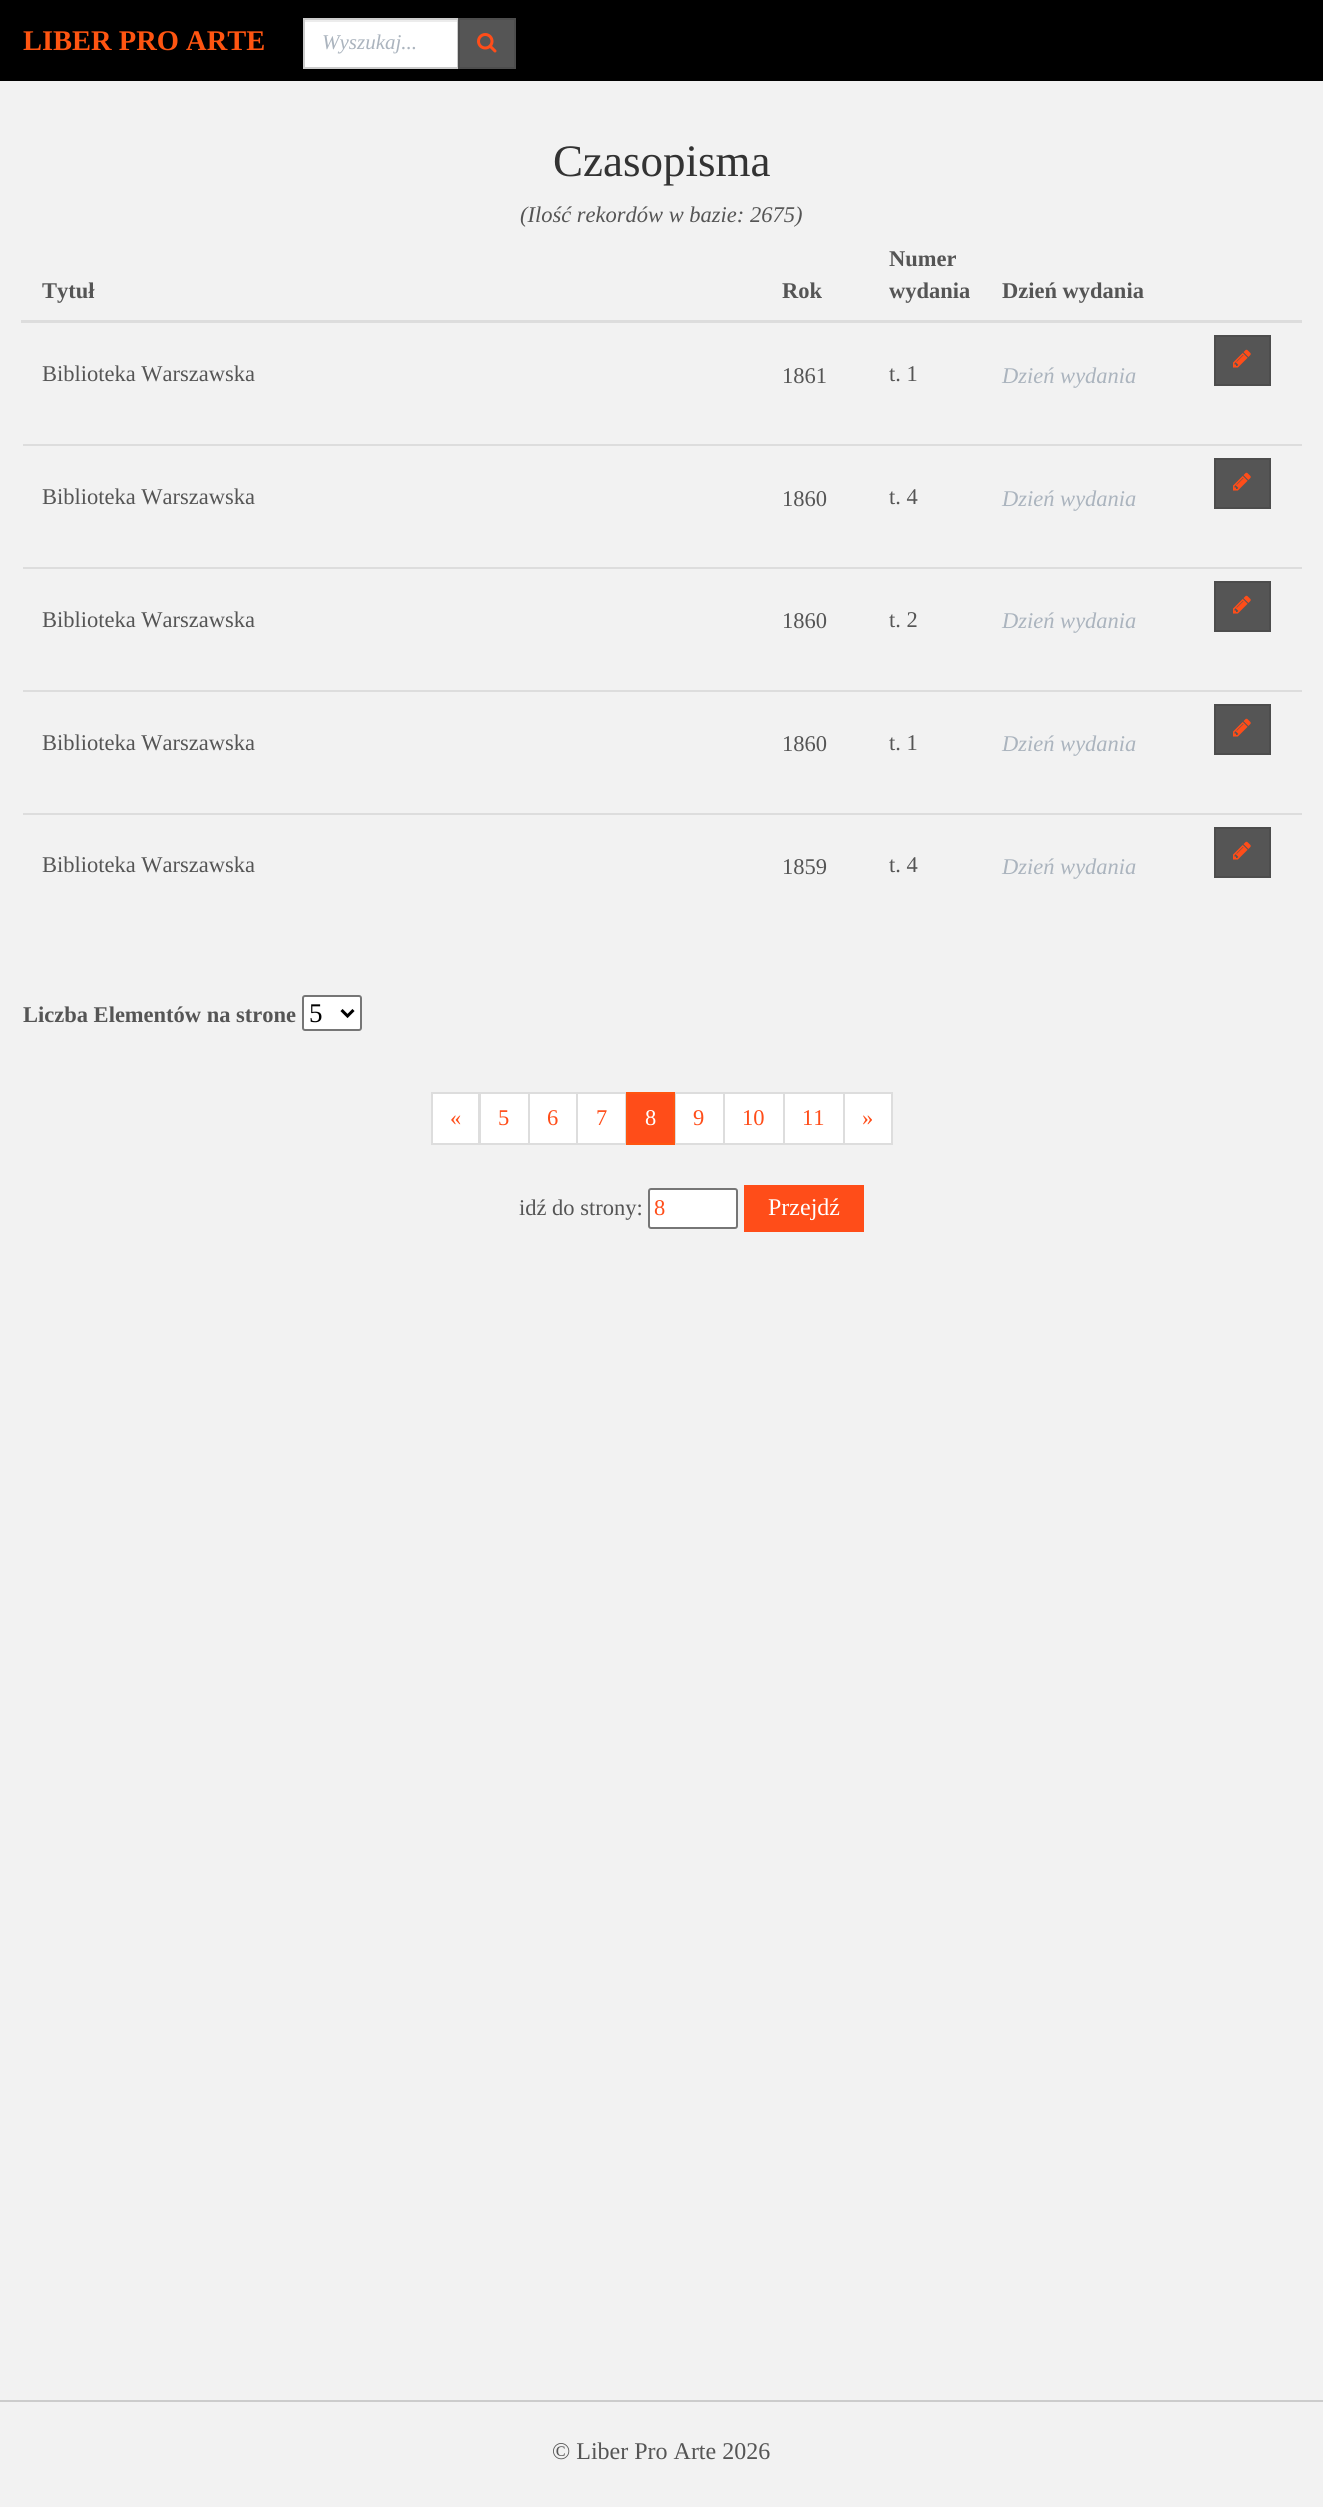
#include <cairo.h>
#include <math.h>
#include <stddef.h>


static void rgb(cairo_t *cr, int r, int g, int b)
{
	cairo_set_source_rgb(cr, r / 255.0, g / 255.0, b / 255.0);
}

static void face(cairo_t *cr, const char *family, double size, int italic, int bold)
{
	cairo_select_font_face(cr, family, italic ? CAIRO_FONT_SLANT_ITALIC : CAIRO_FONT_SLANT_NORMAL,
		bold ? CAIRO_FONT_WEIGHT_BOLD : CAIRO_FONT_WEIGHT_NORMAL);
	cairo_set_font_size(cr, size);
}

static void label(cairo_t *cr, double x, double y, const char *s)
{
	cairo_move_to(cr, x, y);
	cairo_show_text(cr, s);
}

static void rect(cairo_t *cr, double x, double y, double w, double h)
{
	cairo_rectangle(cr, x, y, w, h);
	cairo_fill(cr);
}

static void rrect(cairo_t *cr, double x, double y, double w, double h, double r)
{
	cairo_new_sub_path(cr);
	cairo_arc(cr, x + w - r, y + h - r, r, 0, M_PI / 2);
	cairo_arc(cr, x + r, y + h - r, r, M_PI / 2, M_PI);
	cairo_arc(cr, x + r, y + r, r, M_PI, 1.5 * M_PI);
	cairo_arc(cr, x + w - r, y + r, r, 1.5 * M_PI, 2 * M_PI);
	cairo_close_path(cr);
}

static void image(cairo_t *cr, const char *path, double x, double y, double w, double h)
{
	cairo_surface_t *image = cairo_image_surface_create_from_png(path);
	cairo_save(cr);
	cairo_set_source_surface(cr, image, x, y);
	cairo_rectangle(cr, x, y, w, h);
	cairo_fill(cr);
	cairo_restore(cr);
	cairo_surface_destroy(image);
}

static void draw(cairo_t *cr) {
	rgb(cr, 242, 242, 242);
	cairo_paint(cr);
	rgb(cr, 0, 0, 0);
	rect(cr, 0, 0, 1323, 81);
	face(cr, "Liberation Serif", 28.5, 0, 1);
	rgb(cr, 255, 85, 17);
	label(cr, 23, 50, "LIBER PRO ARTE");
	rgb(cr, 255, 255, 255);
	rect(cr, 305, 22, 152, 45);
	rgb(cr, 236, 236, 236);
	rect(cr, 305, 20, 153, 2);
	cairo_rectangle(cr, 304, 19, 154, 49);
	rgb(cr, 204, 204, 204);
	cairo_stroke(cr);
	face(cr, "Liberation Serif", 21, 1, 0);
	rgb(cr, 171, 180, 190);
	label(cr, 322, 49, "Wyszukaj...");
	rgb(cr, 85, 85, 85);
	cairo_rectangle(cr, 459, 19, 56, 49);
	cairo_fill_preserve(cr);
	rgb(cr, 77, 77, 77);
	cairo_stroke(cr);
	image(cr, "image0.png", 477, 33, 20, 20);
	face(cr, "Liberation Serif", 45, 0, 0);
	rgb(cr, 51, 51, 51);
	label(cr, 553, 176, "Czasopisma");
	face(cr, "Liberation Serif", 22.5, 1, 0);
	rgb(cr, 85, 85, 85);
	label(cr, 520, 222, "(Ilość rekordów w bazie: 2675)");
	face(cr, "Liberation Serif", 22.5, 0, 1);
	label(cr, 42, 298, "Tytuł");
	label(cr, 782, 298, "Rok");
	label(cr, 889, 266, "Numer");
	label(cr, 889, 298, "wydania");
	label(cr, 1002, 298, "Dzień wydania");
	rgb(cr, 221, 221, 221);
	rect(cr, 21, 320, 1281, 3);
	face(cr, "Liberation Serif", 22.5, 0, 0);
	rgb(cr, 85, 85, 85);
	label(cr, 42, 381, "Biblioteka Warszawska");
	label(cr, 782, 383, "1861");
	label(cr, 889, 381, "t. 1");
	face(cr, "Liberation Serif", 22.5, 1, 0);
	rgb(cr, 171, 180, 190);
	label(cr, 1002, 383, "Dzień wydania");
	rgb(cr, 85, 85, 85);
	cairo_rectangle(cr, 1215, 336, 55, 49);
	cairo_fill_preserve(cr);
	rgb(cr, 77, 77, 77);
	cairo_stroke(cr);
	image(cr, "image1.png", 1233, 349, 18, 19);
	rgb(cr, 221, 221, 221);
	rect(cr, 23, 444, 1279, 2);
	rgb(cr, 85, 85, 85);
	cairo_rectangle(cr, 1215, 459, 55, 49);
	cairo_fill_preserve(cr);
	rgb(cr, 77, 77, 77);
	cairo_stroke(cr);
	image(cr, "image1.png", 1233, 472, 18, 19);
	face(cr, "Liberation Serif", 22.5, 0, 0);
	rgb(cr, 85, 85, 85);
	label(cr, 42, 504, "Biblioteka Warszawska");
	label(cr, 782, 506, "1860");
	label(cr, 889, 504, "t. 4");
	face(cr, "Liberation Serif", 22.5, 1, 0);
	rgb(cr, 171, 180, 190);
	label(cr, 1002, 506, "Dzień wydania");
	rgb(cr, 221, 221, 221);
	rect(cr, 23, 567, 1279, 2);
	rgb(cr, 85, 85, 85);
	cairo_rectangle(cr, 1215, 582, 55, 49);
	cairo_fill_preserve(cr);
	rgb(cr, 77, 77, 77);
	cairo_stroke(cr);
	image(cr, "image1.png", 1233, 595, 18, 19);
	face(cr, "Liberation Serif", 22.5, 0, 0);
	rgb(cr, 85, 85, 85);
	label(cr, 42, 627, "Biblioteka Warszawska");
	label(cr, 782, 628, "1860");
	label(cr, 889, 627, "t. 2");
	face(cr, "Liberation Serif", 22.5, 1, 0);
	rgb(cr, 171, 180, 190);
	label(cr, 1002, 628, "Dzień wydania");
	rgb(cr, 221, 221, 221);
	rect(cr, 23, 690, 1279, 2);
	rgb(cr, 85, 85, 85);
	cairo_rectangle(cr, 1215, 705, 55, 49);
	cairo_fill_preserve(cr);
	rgb(cr, 77, 77, 77);
	cairo_stroke(cr);
	image(cr, "image1.png", 1233, 718, 18, 19);
	face(cr, "Liberation Serif", 22.5, 0, 0);
	rgb(cr, 85, 85, 85);
	label(cr, 42, 750, "Biblioteka Warszawska");
	label(cr, 782, 751, "1860");
	label(cr, 889, 750, "t. 1");
	face(cr, "Liberation Serif", 22.5, 1, 0);
	rgb(cr, 171, 180, 190);
	label(cr, 1002, 751, "Dzień wydania");
	rgb(cr, 221, 221, 221);
	rect(cr, 23, 813, 1279, 2);
	rgb(cr, 85, 85, 85);
	cairo_rectangle(cr, 1215, 828, 55, 49);
	cairo_fill_preserve(cr);
	rgb(cr, 77, 77, 77);
	cairo_stroke(cr);
	image(cr, "image1.png", 1233, 841, 18, 19);
	face(cr, "Liberation Serif", 22.5, 0, 0);
	rgb(cr, 85, 85, 85);
	label(cr, 42, 872, "Biblioteka Warszawska");
	label(cr, 782, 874, "1859");
	label(cr, 889, 872, "t. 4");
	face(cr, "Liberation Serif", 22.5, 1, 0);
	rgb(cr, 171, 180, 190);
	label(cr, 1002, 874, "Dzień wydania");
	face(cr, "Liberation Serif", 22.5, 0, 1);
	rgb(cr, 85, 85, 85);
	label(cr, 23, 1022, "Liczba Elementów na strone");
	rgb(cr, 255, 255, 255);
	rrect(cr, 303, 996, 58, 34, 2);
	cairo_fill_preserve(cr);
	rgb(cr, 118, 118, 118);
	cairo_stroke(cr);
	cairo_new_path(cr);
	cairo_move_to(cr, 341.5, 1010);
	cairo_line_to(cr, 347.5, 1016);
	cairo_line_to(cr, 353.5, 1010);
	rgb(cr, 0, 0, 0);
	cairo_set_line_width(cr, 3);
	cairo_stroke(cr);
	face(cr, "Liberation Serif", 27, 0, 0);
	label(cr, 309, 1022, "5");
	rgb(cr, 255, 255, 255);
	cairo_rectangle(cr, 432, 1093, 47, 51);
	cairo_fill_preserve(cr);
	rgb(cr, 221, 221, 221);
	cairo_set_line_width(cr, 2);
	cairo_stroke(cr);
	face(cr, "Liberation Serif", 22.5, 0, 0);
	rgb(cr, 255, 77, 25);
	label(cr, 450, 1125, "«");
	rgb(cr, 255, 255, 255);
	cairo_rectangle(cr, 480, 1093, 49, 51);
	cairo_fill_preserve(cr);
	rgb(cr, 221, 221, 221);
	cairo_stroke(cr);
	rgb(cr, 255, 77, 25);
	label(cr, 498, 1125, "5");
	rgb(cr, 255, 255, 255);
	cairo_rectangle(cr, 529, 1093, 48, 51);
	cairo_fill_preserve(cr);
	rgb(cr, 221, 221, 221);
	cairo_stroke(cr);
	rgb(cr, 255, 77, 25);
	label(cr, 547, 1125, "6");
	rgb(cr, 255, 255, 255);
	cairo_rectangle(cr, 577, 1093, 49, 51);
	cairo_fill_preserve(cr);
	rgb(cr, 221, 221, 221);
	cairo_stroke(cr);
	rgb(cr, 255, 77, 25);
	label(cr, 596, 1125, "7");
	rgb(cr, 255, 255, 255);
	cairo_rectangle(cr, 675, 1093, 49, 51);
	cairo_fill_preserve(cr);
	rgb(cr, 221, 221, 221);
	cairo_stroke(cr);
	rgb(cr, 255, 77, 25);
	cairo_rectangle(cr, 627, 1093, 47, 51);
	cairo_fill_preserve(cr);
	rgb(cr, 255, 85, 17);
	cairo_stroke(cr);
	rgb(cr, 255, 255, 255);
	label(cr, 645, 1125, "8");
	rgb(cr, 255, 77, 25);
	label(cr, 693, 1125, "9");
	rgb(cr, 255, 255, 255);
	cairo_rectangle(cr, 724, 1093, 60, 51);
	cairo_fill_preserve(cr);
	rgb(cr, 221, 221, 221);
	cairo_stroke(cr);
	rgb(cr, 255, 77, 25);
	label(cr, 742, 1125, "10");
	rgb(cr, 255, 255, 255);
	cairo_rectangle(cr, 784, 1093, 60, 51);
	cairo_fill_preserve(cr);
	rgb(cr, 221, 221, 221);
	cairo_stroke(cr);
	rgb(cr, 255, 77, 25);
	label(cr, 802, 1125, "11");
	rgb(cr, 255, 255, 255);
	cairo_rectangle(cr, 844, 1093, 48, 51);
	cairo_fill_preserve(cr);
	rgb(cr, 221, 221, 221);
	cairo_stroke(cr);
	rgb(cr, 255, 77, 25);
	label(cr, 862, 1125, "»");
	rgb(cr, 85, 85, 85);
	label(cr, 519, 1215, "idź do strony:");
	rgb(cr, 255, 255, 255);
	rrect(cr, 649, 1189, 88, 39, 2);
	cairo_fill_preserve(cr);
	rgb(cr, 118, 118, 118);
	cairo_stroke(cr);
	rgb(cr, 255, 77, 25);
	label(cr, 654, 1215, "8");
	rect(cr, 744, 1185, 120, 47);
	face(cr, "Liberation Serif", 24, 0, 0);
	rgb(cr, 255, 255, 255);
	label(cr, 768, 1215, "Przejdź");
	rgb(cr, 204, 204, 204);
	rect(cr, 0, 2400, 1323, 2);
	rgb(cr, 85, 85, 85);
	label(cr, 552, 2459, "© Liber Pro Arte 2026");
}

int main(void) {
	cairo_surface_t *surface = cairo_image_surface_create(CAIRO_FORMAT_RGB24, 1323, 2507);
	cairo_t *cr = cairo_create(surface);
	cairo_font_options_t *options = cairo_font_options_create();
	cairo_font_options_set_hint_metrics(options, CAIRO_HINT_METRICS_OFF);
	cairo_font_options_set_hint_style(options, CAIRO_HINT_STYLE_NONE);
	cairo_set_font_options(cr, options);
	cairo_set_miter_limit(cr, 4);
	draw(cr);
	cairo_surface_write_to_png(surface, "render.png");
	cairo_font_options_destroy(options);
	cairo_destroy(cr);
	cairo_surface_destroy(surface);
	return 0;
}
